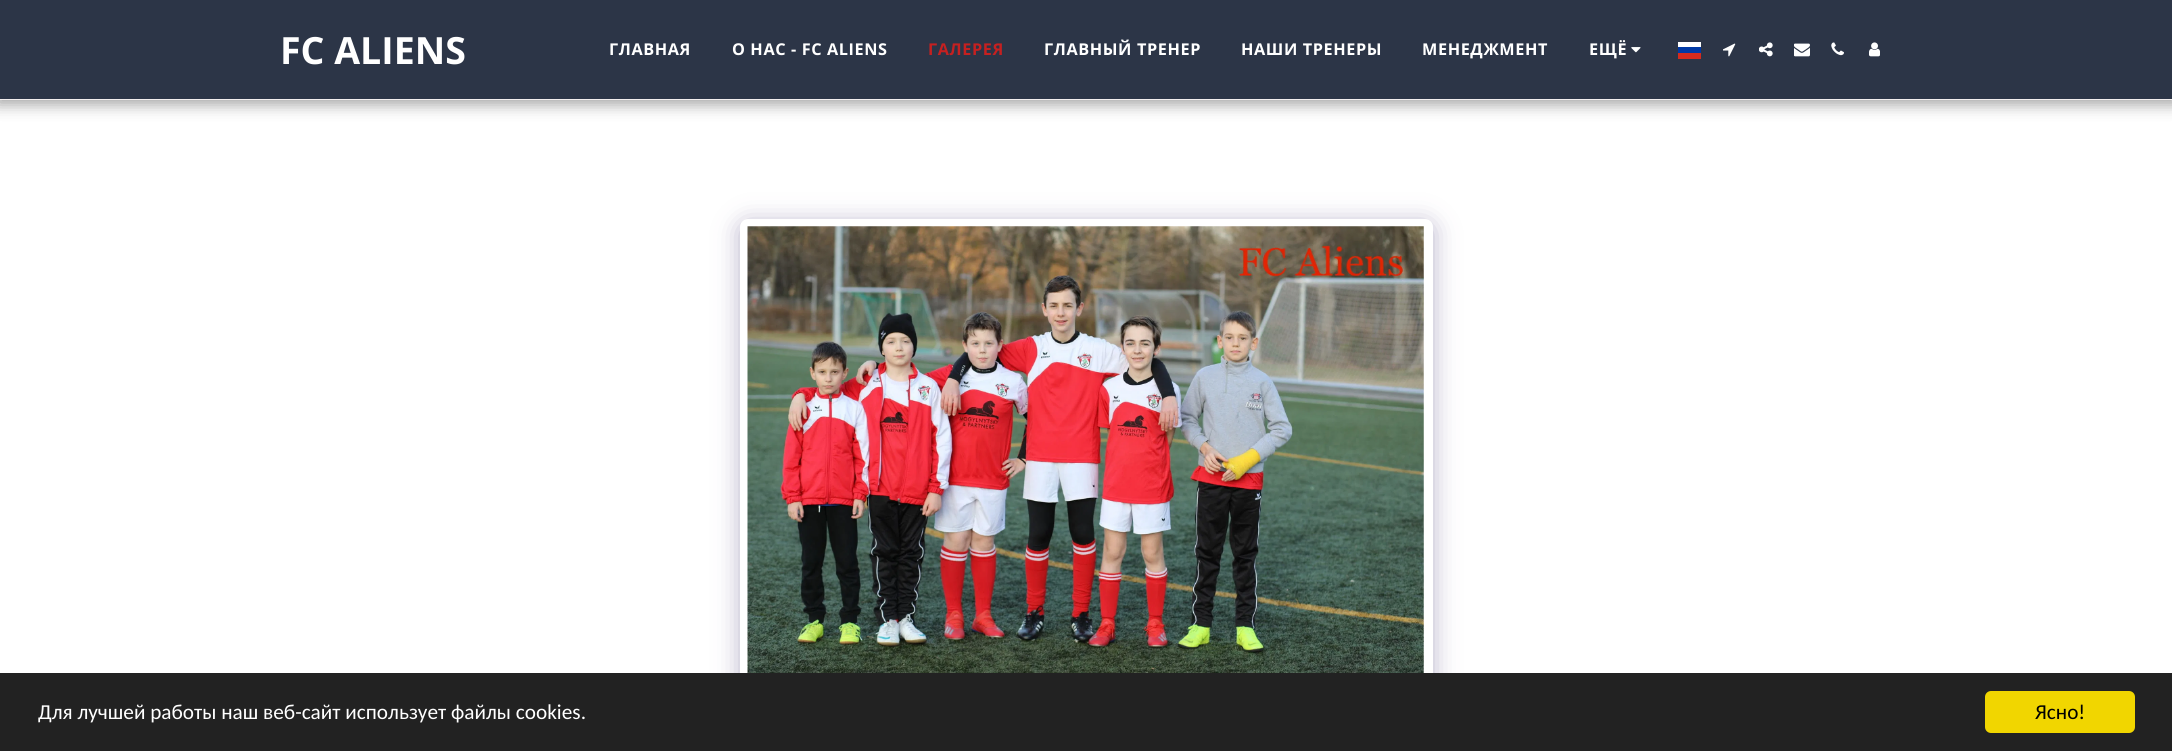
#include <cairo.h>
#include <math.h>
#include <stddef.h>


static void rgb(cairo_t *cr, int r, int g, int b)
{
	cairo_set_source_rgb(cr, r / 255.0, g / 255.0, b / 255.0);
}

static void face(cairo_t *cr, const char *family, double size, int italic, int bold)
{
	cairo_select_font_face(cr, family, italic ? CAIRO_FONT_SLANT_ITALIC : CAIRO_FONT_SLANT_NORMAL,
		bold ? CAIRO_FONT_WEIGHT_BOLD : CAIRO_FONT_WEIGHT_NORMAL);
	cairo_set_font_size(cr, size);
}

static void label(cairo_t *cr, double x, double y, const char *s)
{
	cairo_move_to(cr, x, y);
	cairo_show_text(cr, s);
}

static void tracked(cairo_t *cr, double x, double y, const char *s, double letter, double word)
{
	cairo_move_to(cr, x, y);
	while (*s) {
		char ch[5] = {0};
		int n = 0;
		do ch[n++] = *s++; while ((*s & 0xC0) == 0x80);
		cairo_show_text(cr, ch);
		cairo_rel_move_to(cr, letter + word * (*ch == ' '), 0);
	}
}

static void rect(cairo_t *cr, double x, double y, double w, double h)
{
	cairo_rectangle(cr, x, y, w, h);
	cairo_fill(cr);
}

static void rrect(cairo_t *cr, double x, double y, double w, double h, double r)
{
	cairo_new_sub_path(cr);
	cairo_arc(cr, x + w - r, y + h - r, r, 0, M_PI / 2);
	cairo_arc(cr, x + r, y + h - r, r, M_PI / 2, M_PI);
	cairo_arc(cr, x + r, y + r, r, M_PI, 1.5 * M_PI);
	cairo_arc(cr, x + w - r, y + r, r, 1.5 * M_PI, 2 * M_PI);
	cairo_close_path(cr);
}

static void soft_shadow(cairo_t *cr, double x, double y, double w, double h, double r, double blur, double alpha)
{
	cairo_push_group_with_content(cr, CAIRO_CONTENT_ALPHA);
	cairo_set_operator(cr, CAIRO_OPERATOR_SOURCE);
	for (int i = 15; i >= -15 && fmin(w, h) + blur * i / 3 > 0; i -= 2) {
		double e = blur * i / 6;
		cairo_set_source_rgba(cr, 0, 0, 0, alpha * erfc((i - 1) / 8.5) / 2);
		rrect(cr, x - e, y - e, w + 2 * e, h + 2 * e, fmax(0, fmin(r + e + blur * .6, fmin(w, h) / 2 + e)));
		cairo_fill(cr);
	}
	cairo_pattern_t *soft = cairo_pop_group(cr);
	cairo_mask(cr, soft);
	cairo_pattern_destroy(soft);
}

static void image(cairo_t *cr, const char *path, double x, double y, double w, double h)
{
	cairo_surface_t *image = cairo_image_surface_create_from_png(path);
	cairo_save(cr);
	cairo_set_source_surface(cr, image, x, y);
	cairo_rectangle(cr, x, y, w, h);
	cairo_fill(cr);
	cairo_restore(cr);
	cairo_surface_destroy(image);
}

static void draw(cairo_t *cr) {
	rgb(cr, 255, 255, 255);
	cairo_paint(cr);
	rgb(cr, 0, 0, 0);
	soft_shadow(cr, -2, 0, 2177, 105, 0, 7.5, 0.35);
	rgb(cr, 44, 53, 71);
	rect(cr, 0, 0, 2172, 99);
	rgb(cr, 243, 238, 238);
	rect(cr, 0, 99, 2172, 1);
	face(cr, "Open Sans", 37.5, 0, 1);
	rgb(cr, 255, 255, 255);
	label(cr, 280, 64, "FC ALIENS");
	face(cr, "Open Sans", 16.25, 0, 1);
	tracked(cr, 609, 55, "ГЛАВНАЯ", 0.6, 0);
	tracked(cr, 732, 55, "О НАС - FC ALIENS", 0.6, 0);
	rgb(cr, 198, 32, 32);
	tracked(cr, 928, 55, "ГАЛЕРЕЯ", 0.6, 0);
	rgb(cr, 255, 255, 255);
	tracked(cr, 1044, 55, "ГЛАВНЫЙ ТРЕНЕР", 0.6, 0);
	tracked(cr, 1241, 55, "НАШИ ТРЕНЕРЫ", 0.6, 0);
	tracked(cr, 1422, 55, "МЕНЕДЖМЕНТ", 0.6, 0);
	tracked(cr, 1589, 55, "ЕЩЁ", 0.6, 0);
	image(cr, "image0.png", 1631, 47, 10, 6);
	rect(cr, 1678, 42, 23, 5);
	rgb(cr, 0, 57, 166);
	rect(cr, 1678, 47, 23, 6);
	rgb(cr, 213, 43, 30);
	rect(cr, 1678, 53, 23, 6);
	image(cr, "image1.png", 1723, 43, 13, 14);
	image(cr, "image2.png", 1759, 42, 14, 15);
	image(cr, "image3.png", 1794, 43, 16, 14);
	image(cr, "image4.png", 1831, 42, 13, 14);
	image(cr, "image5.png", 1869, 42, 11, 15);
	rgb(cr, 77, 63, 122);
	soft_shadow(cr, 740, 223, 693, 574, 8, 12.5, 0.4);
	rgb(cr, 255, 255, 255);
	rrect(cr, 740, 219, 693, 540, 8);
	cairo_fill(cr);
	image(cr, "image6.png", 747, 226, 677, 447);
	rgb(cr, 34, 34, 34);
	rect(cr, 0, 673, 2172, 78);
	face(cr, "Carlito", 21.25, 0, 0);
	rgb(cr, 255, 255, 255);
	label(cr, 38, 719, "Для лучшей работы наш веб-сайт использует файлы cookies.");
	rgb(cr, 241, 214, 0);
	rrect(cr, 1985, 691, 150, 42, 6);
	cairo_fill(cr);
	rgb(cr, 0, 0, 0);
	label(cr, 2035, 719, "Ясно!");
}

int main(void) {
	cairo_surface_t *surface = cairo_image_surface_create(CAIRO_FORMAT_RGB24, 2172, 751);
	cairo_t *cr = cairo_create(surface);
	cairo_font_options_t *options = cairo_font_options_create();
	cairo_font_options_set_hint_metrics(options, CAIRO_HINT_METRICS_OFF);
	cairo_font_options_set_hint_style(options, CAIRO_HINT_STYLE_NONE);
	cairo_set_font_options(cr, options);
	cairo_set_miter_limit(cr, 4);
	draw(cr);
	cairo_surface_write_to_png(surface, "render.png");
	cairo_font_options_destroy(options);
	cairo_destroy(cr);
	cairo_surface_destroy(surface);
	return 0;
}
